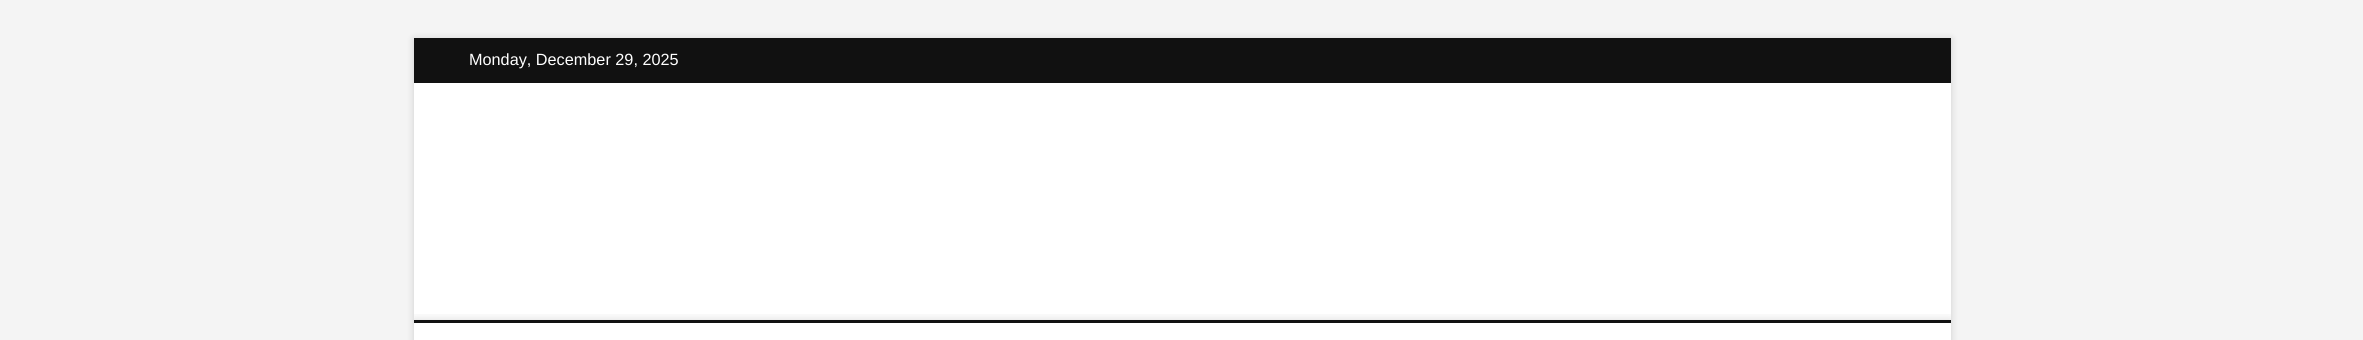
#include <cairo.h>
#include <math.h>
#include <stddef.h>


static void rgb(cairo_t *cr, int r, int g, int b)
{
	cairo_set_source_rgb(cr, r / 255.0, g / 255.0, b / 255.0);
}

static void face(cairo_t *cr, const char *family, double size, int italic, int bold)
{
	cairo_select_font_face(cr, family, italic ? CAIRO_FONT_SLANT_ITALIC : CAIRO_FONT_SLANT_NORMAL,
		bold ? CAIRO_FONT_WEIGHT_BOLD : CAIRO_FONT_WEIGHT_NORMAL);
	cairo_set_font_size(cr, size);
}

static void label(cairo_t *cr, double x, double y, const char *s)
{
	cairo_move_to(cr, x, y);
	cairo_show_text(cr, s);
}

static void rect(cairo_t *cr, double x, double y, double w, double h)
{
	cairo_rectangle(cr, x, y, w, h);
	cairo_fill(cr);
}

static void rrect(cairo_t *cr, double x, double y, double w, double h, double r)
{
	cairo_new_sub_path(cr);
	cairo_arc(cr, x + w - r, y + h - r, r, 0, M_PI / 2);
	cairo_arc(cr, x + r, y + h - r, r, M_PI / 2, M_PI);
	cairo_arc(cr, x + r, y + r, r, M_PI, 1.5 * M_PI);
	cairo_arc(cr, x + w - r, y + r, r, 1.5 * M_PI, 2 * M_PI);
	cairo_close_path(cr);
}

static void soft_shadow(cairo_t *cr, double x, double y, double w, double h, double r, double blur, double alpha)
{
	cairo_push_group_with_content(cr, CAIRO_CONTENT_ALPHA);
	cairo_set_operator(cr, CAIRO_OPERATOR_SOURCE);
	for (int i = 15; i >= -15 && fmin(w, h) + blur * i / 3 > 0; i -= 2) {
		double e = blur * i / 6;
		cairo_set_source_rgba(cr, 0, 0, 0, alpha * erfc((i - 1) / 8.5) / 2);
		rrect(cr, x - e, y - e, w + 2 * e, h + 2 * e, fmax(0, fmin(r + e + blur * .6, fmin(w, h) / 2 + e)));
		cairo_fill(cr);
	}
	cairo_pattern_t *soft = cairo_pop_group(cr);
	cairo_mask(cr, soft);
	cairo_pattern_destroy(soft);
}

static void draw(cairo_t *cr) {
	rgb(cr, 244, 244, 244);
	cairo_paint(cr);
	rgb(cr, 0, 0, 0);
	soft_shadow(cr, 414, 39, 1537, 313, 0, 4, 0.15);
	rgb(cr, 255, 255, 255);
	rect(cr, 414, 83, 1537, 257);
	rgb(cr, 17, 17, 17);
	rect(cr, 414, 38, 1537, 45);
	face(cr, "Liberation Sans", 16.25, 0, 0);
	rgb(cr, 255, 255, 255);
	label(cr, 469, 65, "Monday, December 29, 2025");
	cairo_save(cr);
	cairo_rectangle(cr, 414, 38, 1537, 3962);
	cairo_clip(cr);
	cairo_rectangle(cr, 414, 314, 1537, 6);
	cairo_clip(cr);
	rgb(cr, 0, 0, 0);
	soft_shadow(cr, 414, 320, 1537, 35, 0, 5, 0.15);
	cairo_restore(cr);
	rgb(cr, 17, 17, 17);
	rect(cr, 414, 320, 1537, 3);
}

int main(void) {
	cairo_surface_t *surface = cairo_image_surface_create(CAIRO_FORMAT_RGB24, 2363, 340);
	cairo_t *cr = cairo_create(surface);
	cairo_font_options_t *options = cairo_font_options_create();
	cairo_font_options_set_hint_metrics(options, CAIRO_HINT_METRICS_OFF);
	cairo_font_options_set_hint_style(options, CAIRO_HINT_STYLE_NONE);
	cairo_set_font_options(cr, options);
	cairo_set_miter_limit(cr, 4);
	draw(cr);
	cairo_surface_write_to_png(surface, "render.png");
	cairo_font_options_destroy(options);
	cairo_destroy(cr);
	cairo_surface_destroy(surface);
	return 0;
}
